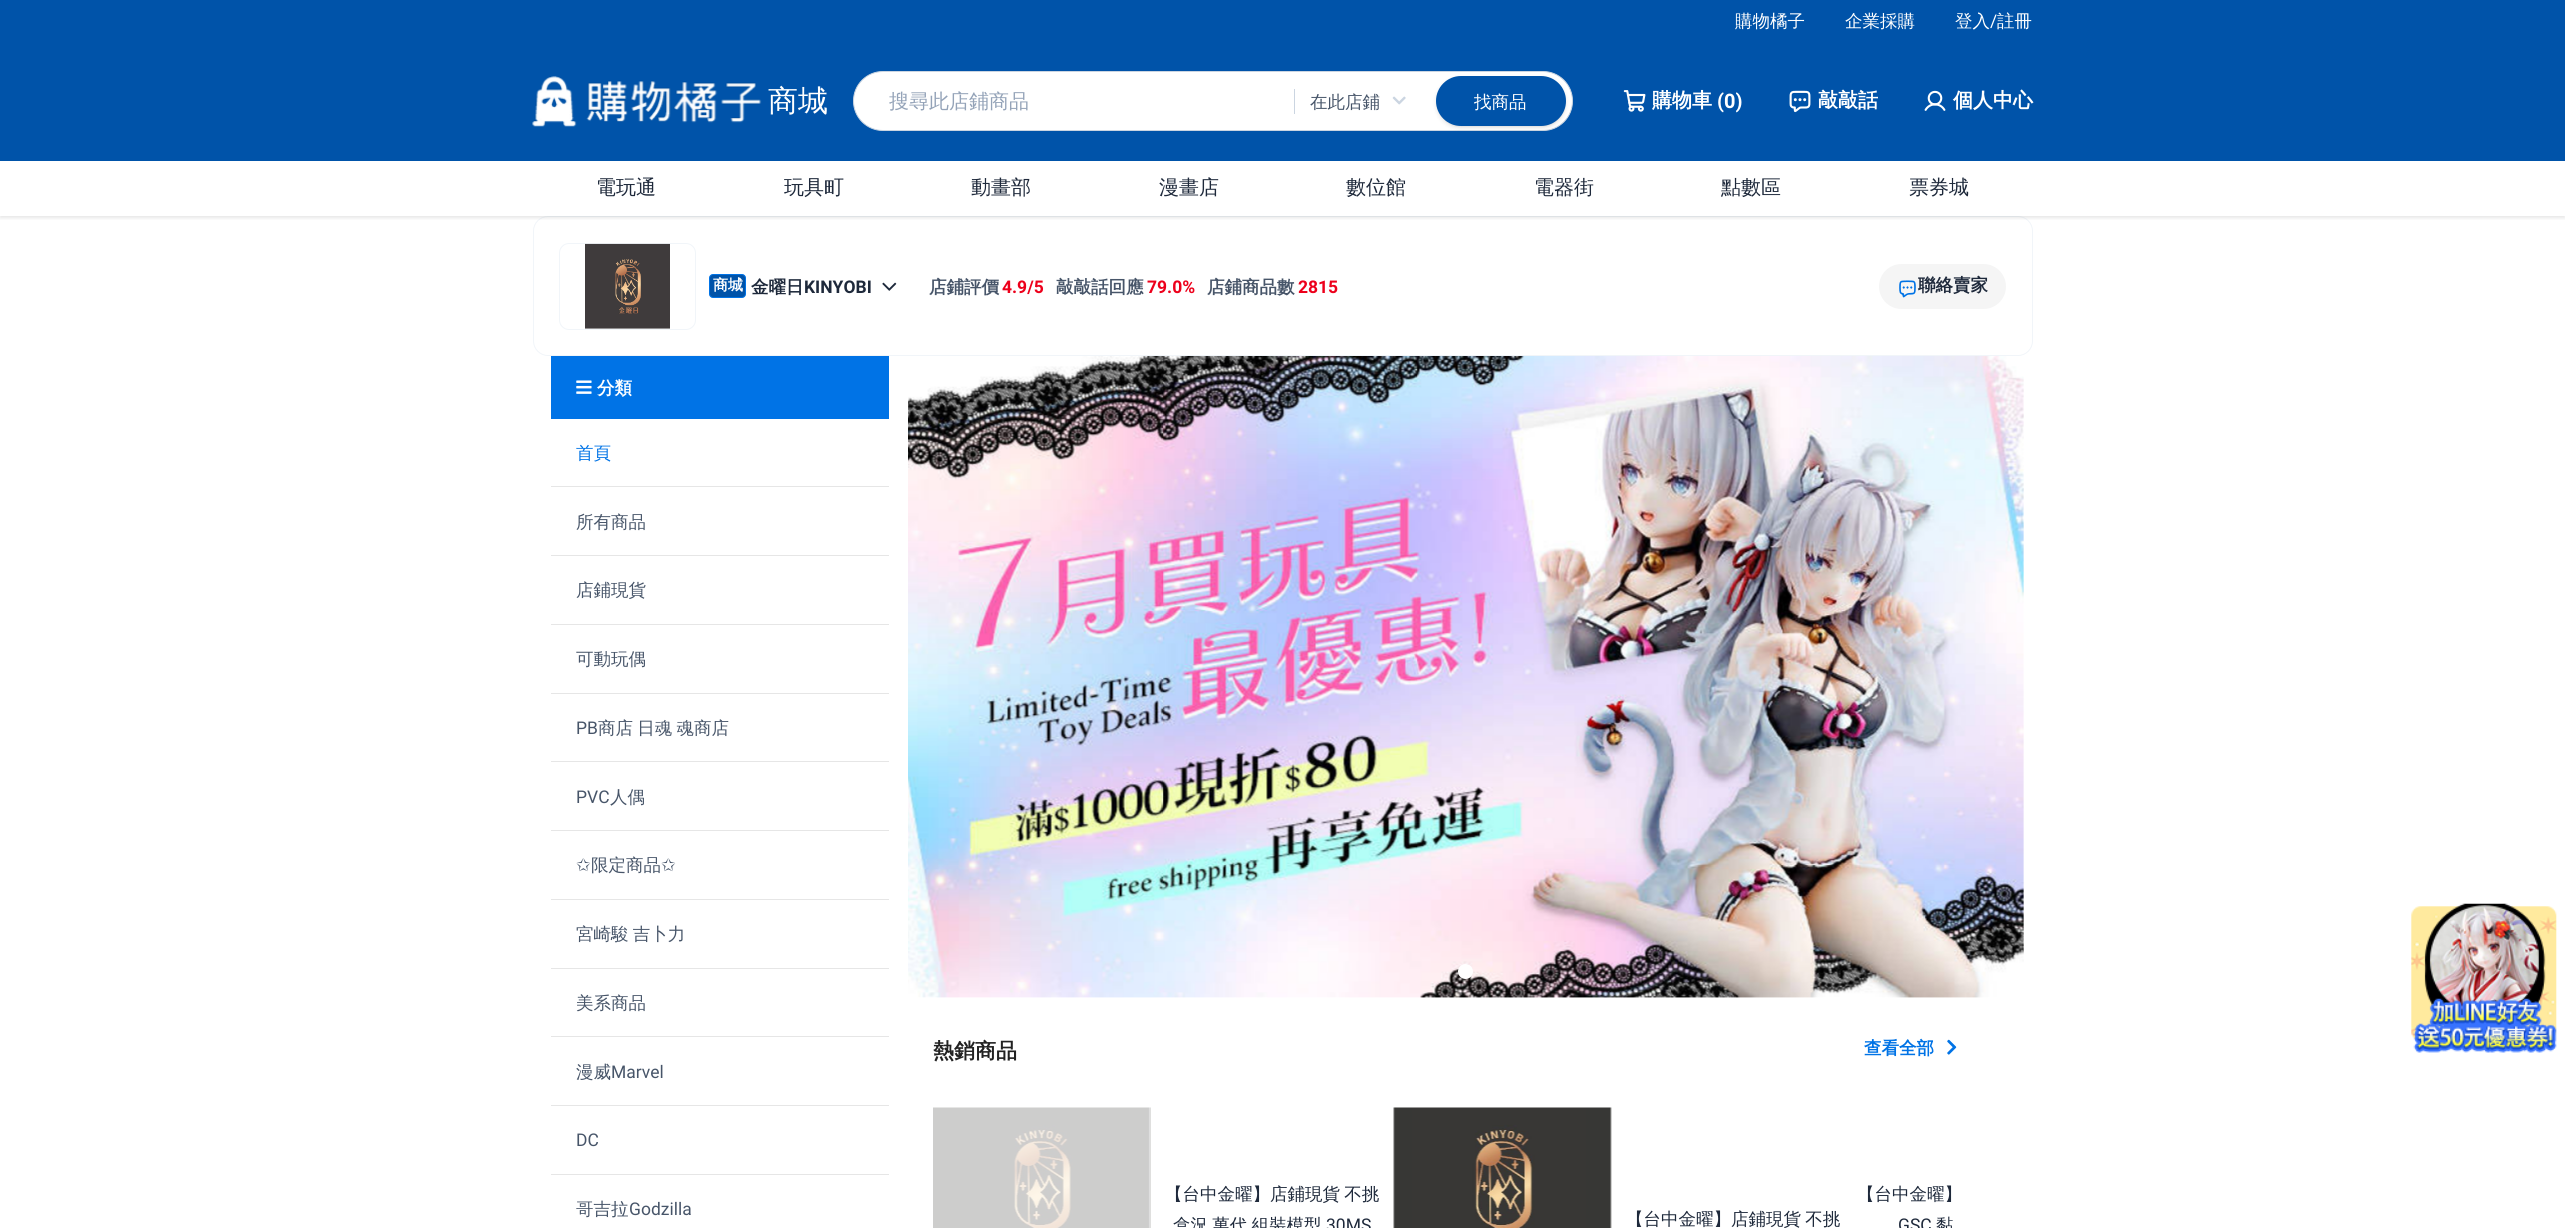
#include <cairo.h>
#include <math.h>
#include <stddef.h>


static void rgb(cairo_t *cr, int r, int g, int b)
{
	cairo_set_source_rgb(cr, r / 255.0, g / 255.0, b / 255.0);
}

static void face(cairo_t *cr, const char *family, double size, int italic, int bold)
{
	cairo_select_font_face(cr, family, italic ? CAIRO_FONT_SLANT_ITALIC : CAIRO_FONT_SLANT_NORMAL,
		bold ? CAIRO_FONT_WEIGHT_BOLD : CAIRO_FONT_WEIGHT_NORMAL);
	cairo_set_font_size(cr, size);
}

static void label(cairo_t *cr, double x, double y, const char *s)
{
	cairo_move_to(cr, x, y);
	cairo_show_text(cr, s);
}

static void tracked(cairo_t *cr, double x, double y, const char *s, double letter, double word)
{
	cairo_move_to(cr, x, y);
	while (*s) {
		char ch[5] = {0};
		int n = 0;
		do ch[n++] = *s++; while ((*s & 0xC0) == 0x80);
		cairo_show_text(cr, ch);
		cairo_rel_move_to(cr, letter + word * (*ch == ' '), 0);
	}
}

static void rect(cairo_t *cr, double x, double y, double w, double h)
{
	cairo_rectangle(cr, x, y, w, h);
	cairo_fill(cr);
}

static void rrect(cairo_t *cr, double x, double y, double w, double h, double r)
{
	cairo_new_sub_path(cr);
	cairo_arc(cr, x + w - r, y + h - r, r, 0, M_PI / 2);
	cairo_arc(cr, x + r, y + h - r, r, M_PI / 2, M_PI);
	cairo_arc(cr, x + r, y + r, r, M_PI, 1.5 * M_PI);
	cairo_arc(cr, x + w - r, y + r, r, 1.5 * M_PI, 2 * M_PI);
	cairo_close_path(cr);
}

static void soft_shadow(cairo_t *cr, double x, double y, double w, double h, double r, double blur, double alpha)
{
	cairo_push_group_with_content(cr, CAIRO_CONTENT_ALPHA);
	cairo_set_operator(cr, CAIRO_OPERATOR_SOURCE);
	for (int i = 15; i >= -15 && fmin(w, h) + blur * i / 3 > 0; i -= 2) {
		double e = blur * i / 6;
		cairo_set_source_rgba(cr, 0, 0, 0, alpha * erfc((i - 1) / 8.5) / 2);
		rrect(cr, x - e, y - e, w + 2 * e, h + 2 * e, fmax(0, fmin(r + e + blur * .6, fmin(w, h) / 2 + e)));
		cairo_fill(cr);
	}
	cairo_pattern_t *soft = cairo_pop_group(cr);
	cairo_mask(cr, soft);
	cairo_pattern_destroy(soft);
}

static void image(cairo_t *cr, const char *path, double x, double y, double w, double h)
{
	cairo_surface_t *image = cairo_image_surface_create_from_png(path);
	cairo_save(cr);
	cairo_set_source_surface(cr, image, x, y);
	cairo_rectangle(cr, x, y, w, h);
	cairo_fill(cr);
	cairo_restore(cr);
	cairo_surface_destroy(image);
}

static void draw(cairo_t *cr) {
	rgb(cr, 255, 255, 255);
	cairo_paint(cr);
	rrect(cr, 533.5, 216.5, 1499, 139, 14.5);
	rgb(cr, 241, 245, 249);
	cairo_set_line_width(cr, 1);
	cairo_stroke(cr);
	cairo_save(cr);
	cairo_rectangle(cr, 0, 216, 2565, 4);
	cairo_clip(cr);
	rgb(cr, 0, 0, 0);
	soft_shadow(cr, 0, 163, 2565, 55, 0, 2, 0.1);
	cairo_restore(cr);
	rgb(cr, 0, 83, 169);
	rect(cr, 0, 0, 2565, 161);
	face(cr, "WenQuanYi Zen Hei Medium", 17.5, 0, 0);
	rgb(cr, 255, 255, 255);
	label(cr, 1735, 27, "購物橘子");
	label(cr, 1845, 27, "企業採購");
	label(cr, 1955, 27, "登入");
	face(cr, "Roboto", 17.5, 0, 0);
	label(cr, 1990, 27, "/");
	face(cr, "WenQuanYi Zen Hei Medium", 17.5, 0, 0);
	label(cr, 1997, 27, "註冊");
	image(cr, "image0.png", 532, 76, 230, 51);
	face(cr, "WenQuanYi Zen Hei Medium", 30, 0, 0);
	label(cr, 768, 111, "商城");
	rrect(cr, 853.5, 71.5, 719, 59, 29.5);
	cairo_fill_preserve(cr);
	rgb(cr, 203, 213, 225);
	cairo_stroke(cr);
	face(cr, "WenQuanYi Zen Hei Medium", 20, 0, 0);
	rgb(cr, 148, 163, 184);
	label(cr, 889, 108, "搜尋此店鋪商品");
	rgb(cr, 203, 213, 225);
	rect(cr, 1294, 89, 1, 25);
	face(cr, "WenQuanYi Zen Hei Medium", 17.5, 0, 0);
	rgb(cr, 71, 85, 105);
	label(cr, 1310, 108, "在此店鋪");
	image(cr, "image1.png", 1392, 96, 14, 9);
	rgb(cr, 0, 0, 0);
	soft_shadow(cr, 1436, 78, 130, 50, 25, 2, 0.1);
	soft_shadow(cr, 1438, 79, 127, 47, 23.5, 1, 0.1);
	rgb(cr, 0, 83, 169);
	rrect(cr, 1436, 76, 130, 50, 25);
	cairo_fill(cr);
	rgb(cr, 255, 255, 255);
	label(cr, 1474, 108, "找商品");
	image(cr, "image2.png", 1623, 90, 23, 22);
	face(cr, "WenQuanYi Zen Hei", 20, 0, 1);
	label(cr, 1652, 107, "購物車");
	face(cr, "Roboto", 20, 0, 1);
	label(cr, 1717, 108, "(0)");
	image(cr, "image3.png", 1789, 90, 22, 23);
	face(cr, "WenQuanYi Zen Hei", 20, 0, 1);
	label(cr, 1818, 107, "敲敲話");
	image(cr, "image4.png", 1924, 90, 22, 21);
	label(cr, 1953, 107, "個人中心");
	face(cr, "WenQuanYi Zen Hei Medium", 20, 0, 0);
	rgb(cr, 30, 41, 59);
	label(cr, 596, 194, "電玩通");
	label(cr, 784, 194, "玩具町");
	label(cr, 971, 194, "動畫部");
	label(cr, 1159, 194, "漫畫店");
	label(cr, 1346, 194, "數位館");
	label(cr, 1534, 194, "電器街");
	label(cr, 1721, 194, "點數區");
	label(cr, 1909, 194, "票券城");
	image(cr, "image5.png", 2411, 903, 146, 150);
	rrect(cr, 559.5, 243.5, 136, 86, 9.5);
	rgb(cr, 241, 245, 249);
	cairo_stroke(cr);
	image(cr, "image6.png", 585, 243, 85, 86);
	rgb(cr, 0, 83, 169);
	rrect(cr, 709.5, 274.5, 36, 23, 3.5);
	cairo_fill_preserve(cr);
	rgb(cr, 0, 115, 230);
	cairo_stroke(cr);
	face(cr, "WenQuanYi Zen Hei", 15, 0, 1);
	rgb(cr, 255, 255, 255);
	label(cr, 713, 290, "商城");
	face(cr, "WenQuanYi Zen Hei", 17.5, 0, 1);
	rgb(cr, 30, 41, 59);
	label(cr, 751, 293, "金曜日");
	face(cr, "Roboto", 17.5, 0, 1);
	label(cr, 804, 293, "KINYOBI");
	image(cr, "image7.png", 882, 282, 15, 9);
	face(cr, "WenQuanYi Zen Hei", 17.5, 0, 1);
	rgb(cr, 71, 85, 105);
	label(cr, 929, 293, "店鋪評價");
	face(cr, "Roboto", 17.5, 0, 1);
	rgb(cr, 237, 0, 27);
	label(cr, 1002, 293, "4.9/5");
	face(cr, "WenQuanYi Zen Hei", 17.5, 0, 1);
	rgb(cr, 71, 85, 105);
	label(cr, 1056, 293, "敲敲話回應");
	face(cr, "Roboto", 17.5, 0, 1);
	rgb(cr, 237, 0, 27);
	label(cr, 1147, 293, "79.0%");
	face(cr, "WenQuanYi Zen Hei", 17.5, 0, 1);
	rgb(cr, 71, 85, 105);
	label(cr, 1207, 293, "店鋪商品數");
	face(cr, "Roboto", 17.5, 0, 1);
	rgb(cr, 237, 0, 27);
	label(cr, 1298, 293, "2815");
	rgb(cr, 245, 245, 245);
	rrect(cr, 1879, 264, 127, 45, 22.5);
	cairo_fill(cr);
	image(cr, "image8.png", 1899, 280, 17, 18);
	face(cr, "WenQuanYi Zen Hei", 17.5, 0, 1);
	rgb(cr, 30, 41, 59);
	label(cr, 1918, 291, "聯絡賣家");
	rgb(cr, 0, 115, 230);
	rect(cr, 551, 356, 338, 63);
	image(cr, "image9.png", 576, 380, 16, 14);
	rgb(cr, 255, 255, 255);
	label(cr, 597, 394, "分類");
	rgb(cr, 230, 230, 230);
	rect(cr, 551, 486, 338, 1);
	face(cr, "WenQuanYi Zen Hei Medium", 17.5, 0, 0);
	rgb(cr, 0, 115, 230);
	label(cr, 576, 459, "首頁");
	rgb(cr, 230, 230, 230);
	rect(cr, 551, 555, 338, 1);
	rgb(cr, 71, 85, 105);
	label(cr, 576, 528, "所有商品");
	rgb(cr, 230, 230, 230);
	rect(cr, 551, 624, 338, 1);
	rgb(cr, 71, 85, 105);
	label(cr, 576, 596, "店鋪現貨");
	rgb(cr, 230, 230, 230);
	rect(cr, 551, 693, 338, 1);
	rgb(cr, 71, 85, 105);
	label(cr, 576, 665, "可動玩偶");
	rgb(cr, 230, 230, 230);
	rect(cr, 551, 761, 338, 1);
	face(cr, "Roboto", 17.5, 0, 0);
	rgb(cr, 71, 85, 105);
	label(cr, 576, 734, "PB");
	face(cr, "WenQuanYi Zen Hei Medium", 17.5, 0, 0);
	tracked(cr, 598, 734, "商店 日魂 魂商店", 0, -1);
	rgb(cr, 230, 230, 230);
	rect(cr, 551, 830, 338, 1);
	face(cr, "Roboto", 17.5, 0, 0);
	rgb(cr, 71, 85, 105);
	label(cr, 576, 803, "PVC");
	face(cr, "WenQuanYi Zen Hei Medium", 17.5, 0, 0);
	label(cr, 610, 803, "人偶");
	rgb(cr, 230, 230, 230);
	rect(cr, 551, 899, 338, 1);
	face(cr, "DejaVu Sans", 17.5, 0, 0);
	rgb(cr, 71, 85, 105);
	label(cr, 576, 871, "✩");
	face(cr, "WenQuanYi Zen Hei Medium", 17.5, 0, 0);
	label(cr, 591, 871, "限定商品");
	face(cr, "DejaVu Sans", 17.5, 0, 0);
	label(cr, 661, 871, "✩");
	rgb(cr, 230, 230, 230);
	rect(cr, 551, 968, 338, 1);
	face(cr, "WenQuanYi Zen Hei Medium", 17.5, 0, 0);
	rgb(cr, 71, 85, 105);
	tracked(cr, 576, 940, "宮崎駿 吉卜力", 0, -1);
	rgb(cr, 230, 230, 230);
	rect(cr, 551, 1036, 338, 1);
	rgb(cr, 71, 85, 105);
	label(cr, 576, 1009, "美系商品");
	rgb(cr, 230, 230, 230);
	rect(cr, 551, 1105, 338, 1);
	rgb(cr, 71, 85, 105);
	label(cr, 576, 1078, "漫威");
	face(cr, "Roboto", 17.5, 0, 0);
	label(cr, 611, 1078, "Marvel");
	rgb(cr, 230, 230, 230);
	rect(cr, 551, 1174, 338, 1);
	rgb(cr, 71, 85, 105);
	label(cr, 576, 1146, "DC");
	face(cr, "WenQuanYi Zen Hei Medium", 17.5, 0, 0);
	label(cr, 576, 1215, "哥吉拉");
	face(cr, "Roboto", 17.5, 0, 0);
	label(cr, 629, 1215, "Godzilla");
	image(cr, "image10.png", 908, 356, 1116, 642);
	rgb(cr, 255, 255, 255);
	cairo_arc(cr, 1465.5, 971.5, 7.5, 0, 2 * M_PI);
	cairo_fill(cr);
	face(cr, "WenQuanYi Zen Hei", 21, 0, 1);
	rgb(cr, 34, 34, 34);
	label(cr, 933, 1058, "熱銷商品");
	face(cr, "WenQuanYi Zen Hei", 17.5, 0, 1);
	rgb(cr, 0, 115, 230);
	label(cr, 1864, 1054, "查看全部");
	image(cr, "image11.png", 1947, 1039, 10, 16);
	image(cr, "image12.png", 933, 1107, 218, 121);
	face(cr, "WenQuanYi Zen Hei Medium", 17.5, 0, 0);
	rgb(cr, 30, 41, 59);
	tracked(cr, 1165, 1200, "【台中金曜】店鋪現貨 不挑", 0, -1);
	tracked(cr, 1173, 1231, "盒況 萬代 組裝模型", 0, -1);
	face(cr, "Roboto", 17.5, 0, 0);
	label(cr, 1326, 1231, "30MS");
	image(cr, "image13.png", 1393, 1107, 219, 121);
	face(cr, "WenQuanYi Zen Hei Medium", 17.5, 0, 0);
	tracked(cr, 1626, 1225, "【台中金曜】店鋪現貨 不挑", 0, -1);
	tracked(cr, 1857, 1200, "【台中金曜】", 0, -1);
	face(cr, "Roboto", 17.5, 0, 0);
	label(cr, 1898, 1231, "GSC");
	face(cr, "WenQuanYi Zen Hei Medium", 17.5, 0, 0);
	label(cr, 1936, 1231, "黏");
}

int main(void) {
	cairo_surface_t *surface = cairo_image_surface_create(CAIRO_FORMAT_RGB24, 2565, 1228);
	cairo_t *cr = cairo_create(surface);
	cairo_font_options_t *options = cairo_font_options_create();
	cairo_font_options_set_hint_metrics(options, CAIRO_HINT_METRICS_OFF);
	cairo_font_options_set_hint_style(options, CAIRO_HINT_STYLE_NONE);
	cairo_set_font_options(cr, options);
	cairo_set_miter_limit(cr, 4);
	draw(cr);
	cairo_surface_write_to_png(surface, "render.png");
	cairo_font_options_destroy(options);
	cairo_destroy(cr);
	cairo_surface_destroy(surface);
	return 0;
}
